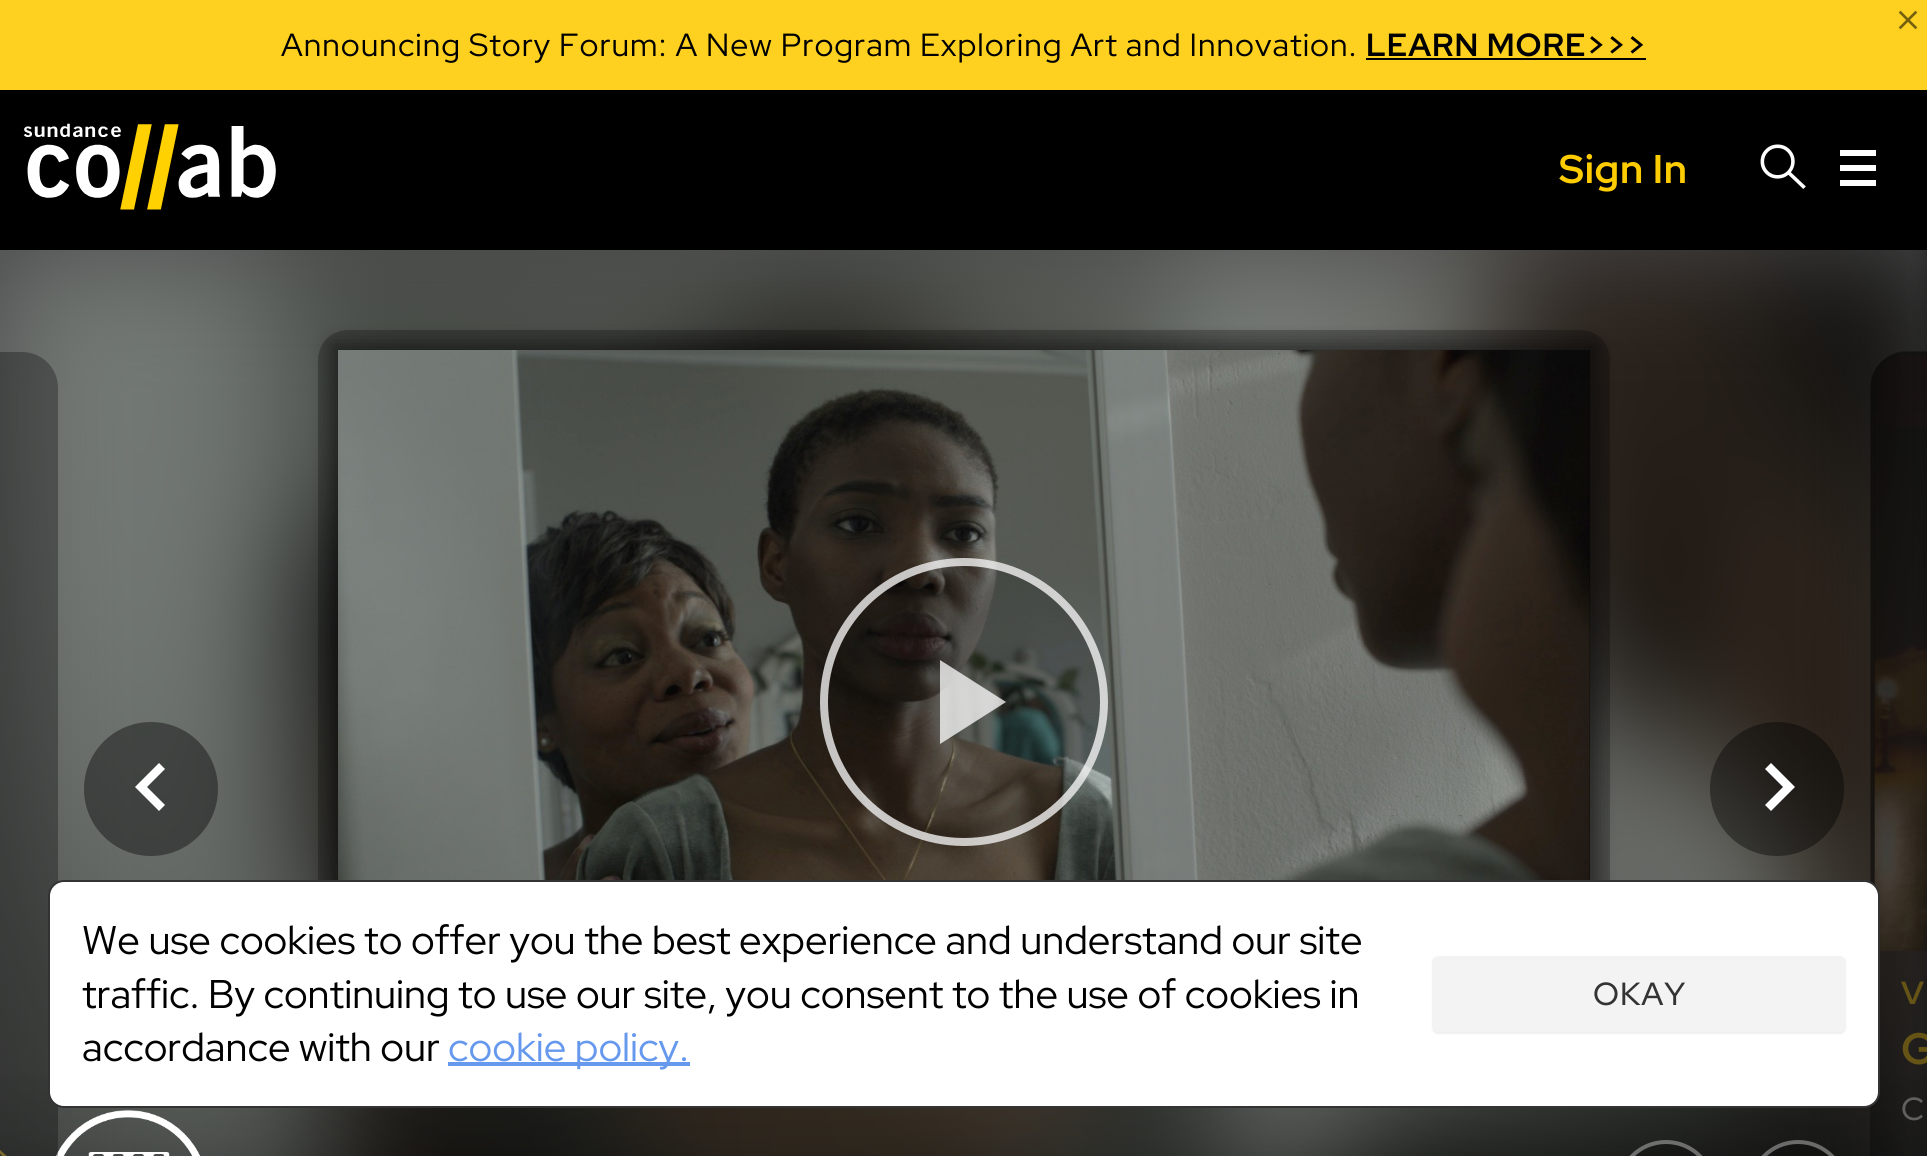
#include <cairo.h>
#include <math.h>
#include <stddef.h>


static void rgb(cairo_t *cr, int r, int g, int b)
{
	cairo_set_source_rgb(cr, r / 255.0, g / 255.0, b / 255.0);
}

static void face(cairo_t *cr, const char *family, double size, int italic, int bold)
{
	cairo_select_font_face(cr, family, italic ? CAIRO_FONT_SLANT_ITALIC : CAIRO_FONT_SLANT_NORMAL,
		bold ? CAIRO_FONT_WEIGHT_BOLD : CAIRO_FONT_WEIGHT_NORMAL);
	cairo_set_font_size(cr, size);
}

static void label(cairo_t *cr, double x, double y, const char *s)
{
	cairo_move_to(cr, x, y);
	cairo_show_text(cr, s);
}

static void tracked(cairo_t *cr, double x, double y, const char *s, double letter, double word)
{
	cairo_move_to(cr, x, y);
	while (*s) {
		char ch[5] = {0};
		int n = 0;
		do ch[n++] = *s++; while ((*s & 0xC0) == 0x80);
		cairo_show_text(cr, ch);
		cairo_rel_move_to(cr, letter + word * (*ch == ' '), 0);
	}
}

static void rect(cairo_t *cr, double x, double y, double w, double h)
{
	cairo_rectangle(cr, x, y, w, h);
	cairo_fill(cr);
}

static void rrect(cairo_t *cr, double x, double y, double w, double h, double r)
{
	cairo_new_sub_path(cr);
	cairo_arc(cr, x + w - r, y + h - r, r, 0, M_PI / 2);
	cairo_arc(cr, x + r, y + h - r, r, M_PI / 2, M_PI);
	cairo_arc(cr, x + r, y + r, r, M_PI, 1.5 * M_PI);
	cairo_arc(cr, x + w - r, y + r, r, 1.5 * M_PI, 2 * M_PI);
	cairo_close_path(cr);
}

static void soft_shadow(cairo_t *cr, double x, double y, double w, double h, double r, double blur, double alpha)
{
	cairo_push_group_with_content(cr, CAIRO_CONTENT_ALPHA);
	cairo_set_operator(cr, CAIRO_OPERATOR_SOURCE);
	for (int i = 15; i >= -15 && fmin(w, h) + blur * i / 3 > 0; i -= 2) {
		double e = blur * i / 6;
		cairo_set_source_rgba(cr, 0, 0, 0, alpha * erfc((i - 1) / 8.5) / 2);
		rrect(cr, x - e, y - e, w + 2 * e, h + 2 * e, fmax(0, fmin(r + e + blur * .6, fmin(w, h) / 2 + e)));
		cairo_fill(cr);
	}
	cairo_pattern_t *soft = cairo_pop_group(cr);
	cairo_mask(cr, soft);
	cairo_pattern_destroy(soft);
}

static void image(cairo_t *cr, const char *path, double x, double y, double w, double h)
{
	cairo_surface_t *image = cairo_image_surface_create_from_png(path);
	cairo_save(cr);
	cairo_set_source_surface(cr, image, x, y);
	cairo_rectangle(cr, x, y, w, h);
	cairo_fill(cr);
	cairo_restore(cr);
	cairo_surface_destroy(image);
}

static void draw(cairo_t *cr) {
	cairo_pattern_t *gradient;
	rgb(cr, 74, 74, 74);
	cairo_paint(cr);
	rgb(cr, 254, 209, 32);
	rect(cr, 0, 0, 1927, 90);
	image(cr, "image0.png", 1898, 10, 20, 20);
	face(cr, "Red Hat Display", 32, 0, 0);
	rgb(cr, 0, 0, 0);
	tracked(cr, 281, 56, "Announcing Story Forum: A New Program Exploring Art and Innovation.", 1, 0);
	face(cr, "Red Hat Display", 32, 0, 1);
	tracked(cr, 1366, 56, "LEARN MORE>>>", 1, 0);
	rect(cr, 1366, 58, 280, 2);
	rect(cr, 0, 90, 1927, 160);
	image(cr, "image1.png", 23, 123, 253, 87);
	face(cr, "Red Hat Display", 40, 0, 1);
	rgb(cr, 255, 204, 0);
	tracked(cr, 1559, 183, "Sign In", 0.75, 0);
	image(cr, "image2.png", 1760, 144, 46, 45);
	rgb(cr, 255, 255, 255);
	rect(cr, 1840, 150, 36, 6);
	rect(cr, 1840, 165, 36, 6);
	rect(cr, 1840, 180, 36, 6);
	image(cr, "image3.png", 0, 250, 1927, 906);
	gradient = cairo_pattern_create_linear(964, 1054, 964, 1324);
	cairo_pattern_add_color_stop_rgba(gradient, 0, 0, 0, 0, 0);
	cairo_pattern_add_color_stop_rgba(gradient, 0.3, 0, 0, 0, 0.1);
	cairo_pattern_add_color_stop_rgba(gradient, 1, 0, 0, 0, 0.6);
	cairo_set_source(cr, gradient);
	cairo_pattern_destroy(gradient);
	rect(cr, 0, 1075, 1927, 81);
	cairo_set_source_rgba(cr, 0, 0, 0, 0.3);
	cairo_new_path(cr);
	cairo_move_to(cr, 1906, 352);
	cairo_line_to(cr, 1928, 352);
	cairo_line_to(cr, 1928, 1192);
	cairo_line_to(cr, 1906, 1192);
	cairo_curve_to(cr, 1886, 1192, 1870, 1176, 1870, 1156);
	cairo_line_to(cr, 1870, 388);
	cairo_curve_to(cr, 1870, 368, 1886, 352, 1906, 352);
	cairo_close_path(cr);
	cairo_fill(cr);
	cairo_set_fill_rule(cr, CAIRO_FILL_RULE_EVEN_ODD);
	cairo_new_path(cr);
	cairo_move_to(cr, 1907, 351);
	cairo_line_to(cr, 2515, 351);
	cairo_curve_to(cr, 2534, 351, 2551, 367, 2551, 387);
	cairo_line_to(cr, 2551, 951);
	cairo_line_to(cr, 1871, 951);
	cairo_line_to(cr, 1871, 387);
	cairo_curve_to(cr, 1871, 367, 1887, 351, 1907, 351);
	cairo_close_path(cr);
	cairo_move_to(cr, 1907, 355);
	cairo_line_to(cr, 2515, 355);
	cairo_curve_to(cr, 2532, 355, 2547, 369, 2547, 387);
	cairo_line_to(cr, 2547, 951);
	cairo_line_to(cr, 1875, 951);
	cairo_line_to(cr, 1875, 387);
	cairo_curve_to(cr, 1875, 369, 1889, 355, 1907, 355);
	cairo_close_path(cr);
	cairo_fill(cr);
	image(cr, "image5.png", 1874, 355, 53, 596);
	rgb(cr, 0, 0, 0);
	soft_shadow(cr, 1924, 156, 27, 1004, 0, 8, 0.3);
	image(cr, "image6.png", 55, 1110, 146, 46);
	cairo_set_source_rgba(cr, 0, 0, 0, 0.3);
	cairo_new_path(cr);
	cairo_move_to(cr, 0, 352);
	cairo_line_to(cr, 22, 352);
	cairo_curve_to(cr, 42, 352, 58, 368, 58, 388);
	cairo_line_to(cr, 58, 1156);
	cairo_curve_to(cr, 58, 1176, 42, 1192, 22, 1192);
	cairo_line_to(cr, 0, 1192);
	cairo_close_path(cr);
	cairo_fill(cr);
	rgb(cr, 121, 106, 44);
	cairo_set_fill_rule(cr, CAIRO_FILL_RULE_WINDING);
	cairo_new_path(cr);
	cairo_move_to(cr, 0, 1150);
	cairo_line_to(cr, 27, 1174);
	cairo_line_to(cr, 0, 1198);
	cairo_line_to(cr, -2, 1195);
	cairo_line_to(cr, 22, 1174);
	cairo_line_to(cr, -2, 1152);
	cairo_close_path(cr);
	cairo_fill(cr);
	cairo_set_source_rgba(cr, 0, 0, 0, 0.4);
	cairo_arc(cr, 151, 789, 67, 0, 2 * M_PI);
	cairo_fill(cr);
	rgb(cr, 255, 255, 255);
	cairo_new_path(cr);
	cairo_move_to(cr, 165, 769);
	cairo_line_to(cr, 147, 787);
	cairo_line_to(cr, 165, 805);
	cairo_line_to(cr, 159, 811);
	cairo_line_to(cr, 135, 787);
	cairo_line_to(cr, 159, 763);
	cairo_close_path(cr);
	cairo_fill(cr);
	rrect(cr, 328, 340, 1272, 724, 20);
	cairo_set_source_rgba(cr, 0, 0, 0, 0.25);
	cairo_set_line_width(cr, 20);
	cairo_stroke(cr);
	rgb(cr, 0, 0, 0);
	soft_shadow(cr, 332, 344, 1264, 716, 0, 10, 0.5);
	image(cr, "image4.png", 338, 350, 1252, 530);
	cairo_set_source_rgba(cr, 0, 0, 0, 0.19);
	cairo_arc(cr, 964, 702, 144, 0, 2 * M_PI);
	cairo_fill(cr);
	cairo_arc(cr, 964, 702, 140, 0, 2 * M_PI);
	cairo_set_source_rgba(cr, 1, 1, 1, 0.75);
	cairo_set_line_width(cr, 8);
	cairo_stroke(cr);
	cairo_new_path(cr);
	cairo_move_to(cr, 940, 660);
	cairo_line_to(cr, 1006, 702);
	cairo_line_to(cr, 940, 744);
	cairo_close_path(cr);
	cairo_fill(cr);
	cairo_set_source_rgba(cr, 0, 0, 0, 0.4);
	cairo_arc(cr, 1777, 789, 67, 0, 2 * M_PI);
	cairo_fill(cr);
	rgb(cr, 255, 255, 255);
	cairo_new_path(cr);
	cairo_move_to(cr, 1771, 763);
	cairo_line_to(cr, 1795, 787);
	cairo_line_to(cr, 1771, 811);
	cairo_line_to(cr, 1765, 805);
	cairo_line_to(cr, 1783, 787);
	cairo_line_to(cr, 1765, 769);
	cairo_close_path(cr);
	cairo_fill(cr);
	face(cr, "Red Hat Display", 32, 0, 1);
	rgb(cr, 101, 84, 21);
	label(cr, 1901, 1004, "V");
	face(cr, "Red Hat Display", 44, 0, 1);
	label(cr, 1901, 1064, "G");
	face(cr, "Red Hat Display Medium", 32, 0, 0);
	rgb(cr, 97, 96, 95);
	label(cr, 1901, 1120, "C");
	cairo_set_source_rgba(cr, 0, 0, 0, 0.2);
	rrect(cr, 1616, 1140, 100, 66, 50);
	cairo_fill(cr);
	rrect(cr, 1618, 1142, 96, 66, 48);
	cairo_set_source_rgba(cr, 0.933, 0.933, 0.933, 0.4);
	cairo_set_line_width(cr, 4);
	cairo_stroke(cr);
	cairo_set_source_rgba(cr, 0, 0, 0, 0.2);
	rrect(cr, 1748, 1140, 100, 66, 50);
	cairo_fill(cr);
	rrect(cr, 1750, 1142, 96, 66, 48);
	cairo_set_source_rgba(cr, 0.933, 0.933, 0.933, 0.4);
	cairo_stroke(cr);
	rgb(cr, 255, 255, 255);
	rrect(cr, 49, 881, 1830, 226, 15);
	cairo_fill_preserve(cr);
	rgb(cr, 51, 51, 51);
	cairo_set_line_width(cr, 2);
	cairo_stroke(cr);
	face(cr, "Red Hat Display", 40, 0, 0);
	rgb(cr, 0, 0, 0);
	label(cr, 82, 954, "We use cookies to offer you the best experience and understand our site");
	label(cr, 82, 1008, "traffic. By continuing to use our site, you consent to the use of cookies in");
	label(cr, 82, 1061, "accordance with our");
	rgb(cr, 102, 153, 238);
	rect(cr, 448, 1062, 242, 4);
	label(cr, 448, 1061, "cookie policy.");
	rgb(cr, 0, 0, 0);
	soft_shadow(cr, 1432, 958, 414, 76, 6, 1, 0.07);
	rgb(cr, 244, 243, 243);
	rrect(cr, 1432, 956, 414, 76, 6);
	cairo_fill(cr);
	face(cr, "Red Hat Display Medium", 32, 0, 0);
	rgb(cr, 51, 51, 51);
	tracked(cr, 1593, 1005, "OKAY", 1, 0);
}

int main(void) {
	cairo_surface_t *surface = cairo_image_surface_create(CAIRO_FORMAT_RGB24, 1927, 1156);
	cairo_t *cr = cairo_create(surface);
	cairo_font_options_t *options = cairo_font_options_create();
	cairo_font_options_set_hint_metrics(options, CAIRO_HINT_METRICS_OFF);
	cairo_font_options_set_hint_style(options, CAIRO_HINT_STYLE_NONE);
	cairo_set_font_options(cr, options);
	cairo_set_miter_limit(cr, 4);
	draw(cr);
	cairo_surface_write_to_png(surface, "render.png");
	cairo_font_options_destroy(options);
	cairo_destroy(cr);
	cairo_surface_destroy(surface);
	return 0;
}
